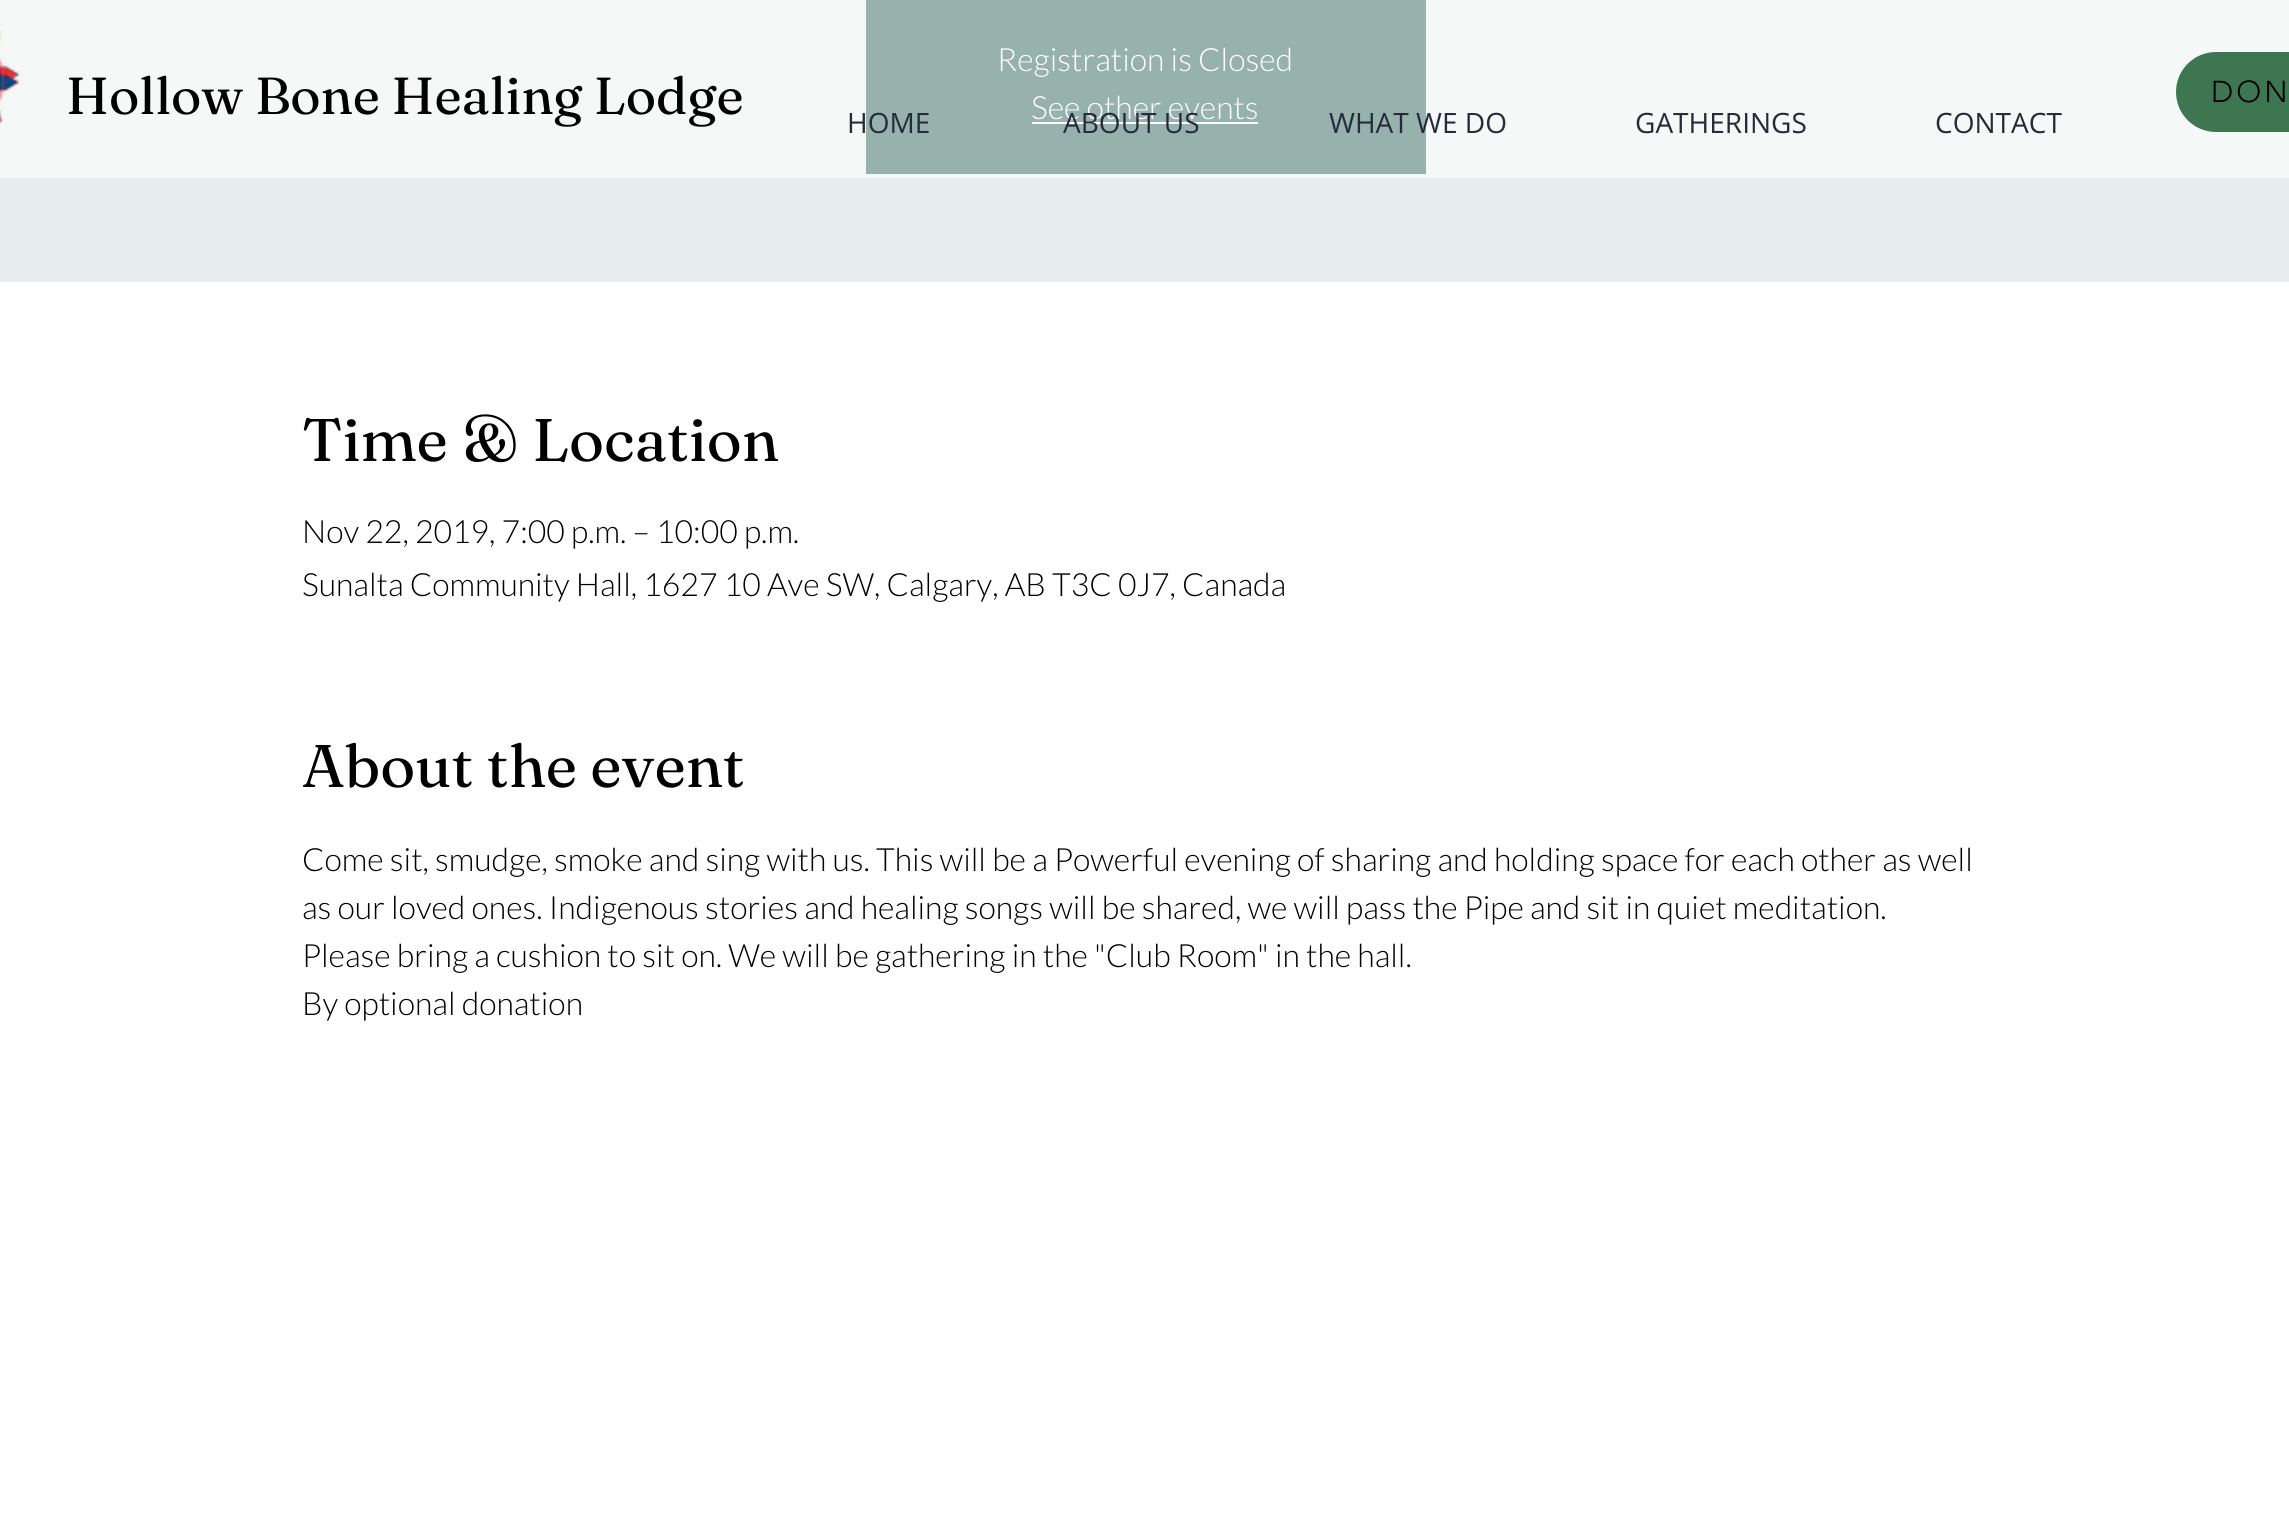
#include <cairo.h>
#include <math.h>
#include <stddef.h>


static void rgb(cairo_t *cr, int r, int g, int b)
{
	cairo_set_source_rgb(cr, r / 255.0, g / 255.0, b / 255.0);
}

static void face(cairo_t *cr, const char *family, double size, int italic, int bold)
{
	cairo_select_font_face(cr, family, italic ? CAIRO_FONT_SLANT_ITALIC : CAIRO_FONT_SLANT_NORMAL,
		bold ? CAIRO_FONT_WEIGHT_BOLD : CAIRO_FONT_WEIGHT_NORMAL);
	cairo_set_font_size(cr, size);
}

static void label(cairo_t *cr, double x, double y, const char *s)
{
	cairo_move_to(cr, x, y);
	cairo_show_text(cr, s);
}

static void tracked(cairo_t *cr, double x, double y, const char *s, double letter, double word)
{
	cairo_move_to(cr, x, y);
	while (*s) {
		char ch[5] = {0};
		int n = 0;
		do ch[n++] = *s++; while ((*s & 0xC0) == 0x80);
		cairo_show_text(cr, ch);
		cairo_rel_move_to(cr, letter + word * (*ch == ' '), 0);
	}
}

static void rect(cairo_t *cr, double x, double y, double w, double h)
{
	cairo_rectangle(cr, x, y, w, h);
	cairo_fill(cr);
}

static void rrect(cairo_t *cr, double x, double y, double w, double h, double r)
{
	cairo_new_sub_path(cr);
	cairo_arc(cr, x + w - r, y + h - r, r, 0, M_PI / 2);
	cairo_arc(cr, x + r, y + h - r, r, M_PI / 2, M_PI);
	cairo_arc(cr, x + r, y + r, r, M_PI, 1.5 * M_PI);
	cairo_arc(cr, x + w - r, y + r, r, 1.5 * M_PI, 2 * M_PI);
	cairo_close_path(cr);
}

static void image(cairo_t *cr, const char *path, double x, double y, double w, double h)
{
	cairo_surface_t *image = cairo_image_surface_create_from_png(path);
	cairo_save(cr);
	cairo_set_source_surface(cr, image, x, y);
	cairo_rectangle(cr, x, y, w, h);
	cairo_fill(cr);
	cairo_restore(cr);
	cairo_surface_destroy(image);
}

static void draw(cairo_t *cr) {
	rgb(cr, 255, 255, 255);
	cairo_paint(cr);
	rgb(cr, 230, 237, 236);
	rect(cr, 0, 178, 2289, 104);
	rgb(cr, 245, 248, 247);
	rect(cr, 0, 0, 2289, 178);
	rgb(cr, 151, 178, 172);
	rect(cr, 866, 0, 560, 174);
	face(cr, "Lato Light", 32, 0, 0);
	rgb(cr, 255, 255, 255);
	label(cr, 997, 71, "Registration is Closed");
	label(cr, 1031, 119, "See other events");
	rect(cr, 1032, 122, 226, 2);
	face(cr, "Fraunces", 60, 0, 0);
	rgb(cr, 0, 0, 0);
	label(cr, 302, 461, "Time & Location");
	face(cr, "Lato Light", 32, 0, 0);
	label(cr, 302, 543, "Nov 22, 2019, 7:00 p.m. – 10:00 p.m.");
	label(cr, 302, 596, "Sunalta Community Hall, 1627 10 Ave SW, Calgary, AB T3C 0J7, Canada");
	face(cr, "Fraunces", 60, 0, 0);
	label(cr, 302, 787, "About the event");
	face(cr, "Lato Light", 32, 0, 0);
	label(cr, 302, 871, "Come sit, smudge, smoke and sing with us. This will be a Powerful evening of sharing and holding space for each other as well");
	label(cr, 302, 919, "as our loved ones. Indigenous stories and healing songs will be shared, we will pass the Pipe and sit in quiet meditation.");
	label(cr, 302, 967, "Please bring a cushion to sit on. We will be gathering in the \"Club Room\" in the hall.");
	label(cr, 302, 1015, "By optional donation");
	image(cr, "image0.png", 0, 30, 21, 94);
	face(cr, "Fraunces", 52, 0, 0);
	label(cr, 66, 114, "Hollow Bone Healing Lodge");
	rgb(cr, 63, 118, 82);
	rrect(cr, 2176, 52, 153, 80, 40);
	cairo_fill(cr);
	face(cr, "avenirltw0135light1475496 Light", 30, 0, 0);
	rgb(cr, 0, 0, 0);
	tracked(cr, 2211, 102, "DON", 3, 0);
	face(cr, "Open Sans", 28, 0, 0);
	rgb(cr, 38, 43, 59);
	label(cr, 847, 133, "HOME");
	label(cr, 1063, 133, "ABOUT US");
	label(cr, 1329, 133, "WHAT WE DO");
	label(cr, 1635, 133, "GATHERINGS");
	label(cr, 1935, 133, "CONTACT");
}

int main(void) {
	cairo_surface_t *surface = cairo_image_surface_create(CAIRO_FORMAT_RGB24, 2289, 1524);
	cairo_t *cr = cairo_create(surface);
	cairo_font_options_t *options = cairo_font_options_create();
	cairo_font_options_set_hint_metrics(options, CAIRO_HINT_METRICS_OFF);
	cairo_font_options_set_hint_style(options, CAIRO_HINT_STYLE_NONE);
	cairo_set_font_options(cr, options);
	cairo_set_miter_limit(cr, 4);
	draw(cr);
	cairo_surface_write_to_png(surface, "render.png");
	cairo_font_options_destroy(options);
	cairo_destroy(cr);
	cairo_surface_destroy(surface);
	return 0;
}
